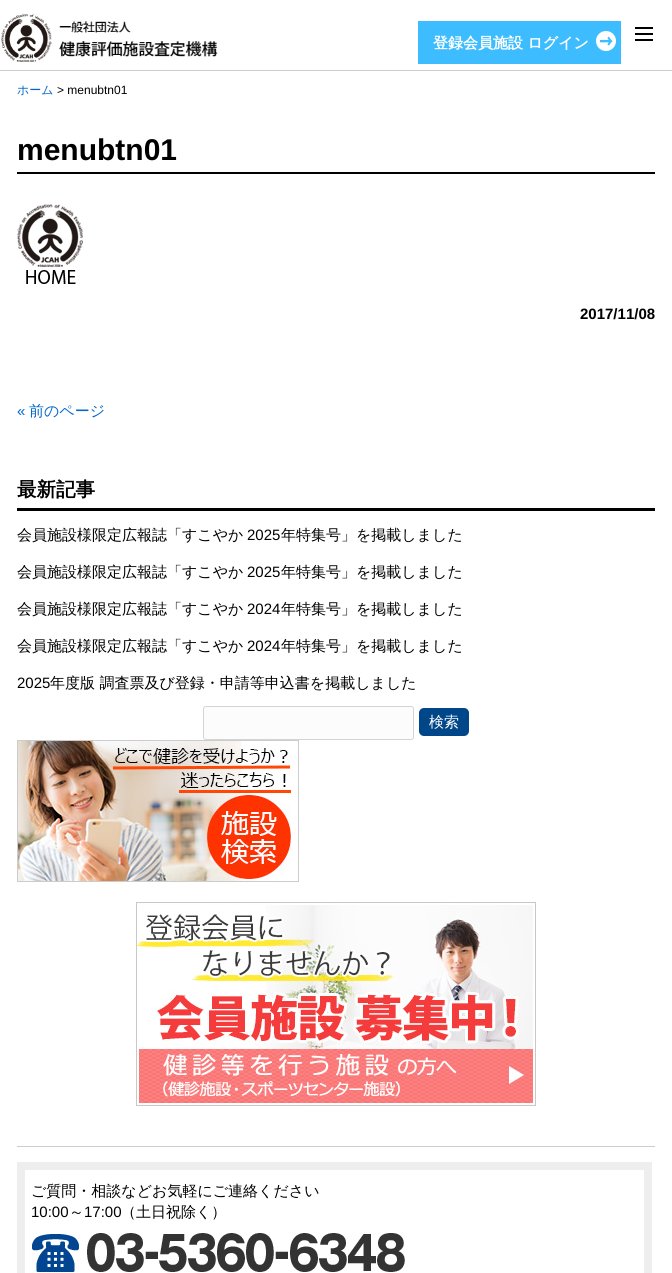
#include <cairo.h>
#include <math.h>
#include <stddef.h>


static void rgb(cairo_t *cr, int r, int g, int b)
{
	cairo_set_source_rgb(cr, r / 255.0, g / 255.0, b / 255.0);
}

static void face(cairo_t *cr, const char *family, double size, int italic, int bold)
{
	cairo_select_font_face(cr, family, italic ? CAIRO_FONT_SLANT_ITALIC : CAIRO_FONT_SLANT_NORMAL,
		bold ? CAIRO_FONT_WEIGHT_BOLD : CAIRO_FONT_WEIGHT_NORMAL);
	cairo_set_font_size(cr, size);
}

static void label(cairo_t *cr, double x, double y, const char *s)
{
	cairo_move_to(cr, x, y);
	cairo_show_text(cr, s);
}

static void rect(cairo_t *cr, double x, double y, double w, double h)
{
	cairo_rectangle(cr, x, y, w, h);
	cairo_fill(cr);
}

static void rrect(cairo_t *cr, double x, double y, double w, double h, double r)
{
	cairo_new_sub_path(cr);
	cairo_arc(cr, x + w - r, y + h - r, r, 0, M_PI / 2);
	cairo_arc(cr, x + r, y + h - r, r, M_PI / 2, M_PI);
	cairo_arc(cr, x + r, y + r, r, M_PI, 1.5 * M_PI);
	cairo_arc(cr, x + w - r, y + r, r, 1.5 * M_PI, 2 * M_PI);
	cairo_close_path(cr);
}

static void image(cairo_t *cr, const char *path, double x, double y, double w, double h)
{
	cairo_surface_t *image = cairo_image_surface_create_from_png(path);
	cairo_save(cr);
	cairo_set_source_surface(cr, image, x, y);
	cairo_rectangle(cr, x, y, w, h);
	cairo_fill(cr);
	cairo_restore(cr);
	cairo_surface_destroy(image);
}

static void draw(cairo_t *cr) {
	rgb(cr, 255, 255, 255);
	cairo_paint(cr);
	rgb(cr, 204, 204, 204);
	rect(cr, 0, 70, 672, 1);
	image(cr, "image0.png", 0, 13, 218, 49);
	rgb(cr, 61, 189, 255);
	rect(cr, 418, 21, 203, 43);
	image(cr, "image1.png", 596, 31, 20, 20);
	face(cr, "WenQuanYi Zen Hei", 15, 0, 1);
	rgb(cr, 255, 255, 255);
	label(cr, 433, 48, "登録会員施設 ログイン");
	rgb(cr, 0, 0, 0);
	rect(cr, 635, 33, 18, 2);
	rect(cr, 635, 27, 18, 2);
	rect(cr, 635, 39, 18, 2);
	face(cr, "WenQuanYi Zen Hei Medium", 12, 0, 0);
	rgb(cr, 0, 102, 204);
	label(cr, 17, 94, "ホーム");
	face(cr, "Liberation Sans", 12, 0, 0);
	rgb(cr, 0, 0, 0);
	label(cr, 57, 94, "> menubtn01");
	rect(cr, 17, 172, 638, 2);
	face(cr, "Liberation Sans", 30, 0, 1);
	label(cr, 17, 160, "menubtn01");
	image(cr, "image2.png", 17, 204, 66, 80);
	face(cr, "Liberation Sans", 15, 0, 1);
	label(cr, 580, 319, "2017/11/08");
	face(cr, "Liberation Sans", 15, 0, 0);
	rgb(cr, 0, 102, 204);
	label(cr, 17, 416, "«");
	face(cr, "WenQuanYi Zen Hei Medium", 15, 0, 0);
	label(cr, 29, 416, "前のページ");
	rgb(cr, 0, 0, 0);
	rect(cr, 17, 508, 638, 3);
	face(cr, "WenQuanYi Zen Hei", 19.5, 0, 1);
	label(cr, 17, 496, "最新記事");
	face(cr, "WenQuanYi Zen Hei Medium", 15, 0, 0);
	label(cr, 17, 540, "会員施設様限定広報誌「すこやか");
	face(cr, "Liberation Sans", 15, 0, 0);
	label(cr, 247, 540, "2025");
	face(cr, "WenQuanYi Zen Hei Medium", 15, 0, 0);
	label(cr, 281, 540, "年特集号」を掲載しました");
	label(cr, 17, 577, "会員施設様限定広報誌「すこやか");
	face(cr, "Liberation Sans", 15, 0, 0);
	label(cr, 247, 577, "2025");
	face(cr, "WenQuanYi Zen Hei Medium", 15, 0, 0);
	label(cr, 281, 577, "年特集号」を掲載しました");
	label(cr, 17, 614, "会員施設様限定広報誌「すこやか");
	face(cr, "Liberation Sans", 15, 0, 0);
	label(cr, 247, 614, "2024");
	face(cr, "WenQuanYi Zen Hei Medium", 15, 0, 0);
	label(cr, 281, 614, "年特集号」を掲載しました");
	label(cr, 17, 651, "会員施設様限定広報誌「すこやか");
	face(cr, "Liberation Sans", 15, 0, 0);
	label(cr, 247, 651, "2024");
	face(cr, "WenQuanYi Zen Hei Medium", 15, 0, 0);
	label(cr, 281, 651, "年特集号」を掲載しました");
	face(cr, "Liberation Sans", 15, 0, 0);
	label(cr, 17, 688, "2025");
	face(cr, "WenQuanYi Zen Hei Medium", 15, 0, 0);
	label(cr, 50, 688, "年度版 調査票及び登録・申請等申込書を掲載しました");
	rgb(cr, 252, 252, 252);
	rrect(cr, 203.5, 706.5, 210, 33, 2.5);
	cairo_fill_preserve(cr);
	rgb(cr, 212, 212, 215);
	cairo_set_line_width(cr, 1);
	cairo_stroke(cr);
	rgb(cr, 0, 71, 138);
	rrect(cr, 419, 708, 50, 28, 5);
	cairo_fill(cr);
	rgb(cr, 255, 255, 255);
	label(cr, 429, 727, "検索");
	cairo_rectangle(cr, 17.5, 740.5, 281, 141);
	rgb(cr, 204, 204, 204);
	cairo_stroke(cr);
	image(cr, "image3.png", 18, 741, 280, 140);
	image(cr, "image4.png", 136, 902, 400, 204);
	rect(cr, 17, 1146, 638, 1);
	cairo_rectangle(cr, 21, 1166, 627, 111);
	rgb(cr, 238, 238, 238);
	cairo_set_line_width(cr, 8);
	cairo_stroke(cr);
	rgb(cr, 0, 0, 0);
	label(cr, 31, 1196, "ご質問・相談などお気軽にご連絡ください");
	face(cr, "Liberation Sans", 15, 0, 0);
	label(cr, 31, 1217, "10:00");
	face(cr, "WenQuanYi Zen Hei Medium", 15, 0, 0);
	label(cr, 69, 1217, "～");
	face(cr, "Liberation Sans", 15, 0, 0);
	label(cr, 84, 1217, "17:00");
	face(cr, "WenQuanYi Zen Hei Medium", 15, 0, 0);
	label(cr, 121, 1217, "（土日祝除く）");
	image(cr, "image5.png", 32, 1233, 373, 39);
}

int main(void) {
	cairo_surface_t *surface = cairo_image_surface_create(CAIRO_FORMAT_RGB24, 672, 1273);
	cairo_t *cr = cairo_create(surface);
	cairo_font_options_t *options = cairo_font_options_create();
	cairo_font_options_set_hint_metrics(options, CAIRO_HINT_METRICS_OFF);
	cairo_font_options_set_hint_style(options, CAIRO_HINT_STYLE_NONE);
	cairo_set_font_options(cr, options);
	cairo_set_miter_limit(cr, 4);
	draw(cr);
	cairo_surface_write_to_png(surface, "render.png");
	cairo_font_options_destroy(options);
	cairo_destroy(cr);
	cairo_surface_destroy(surface);
	return 0;
}
